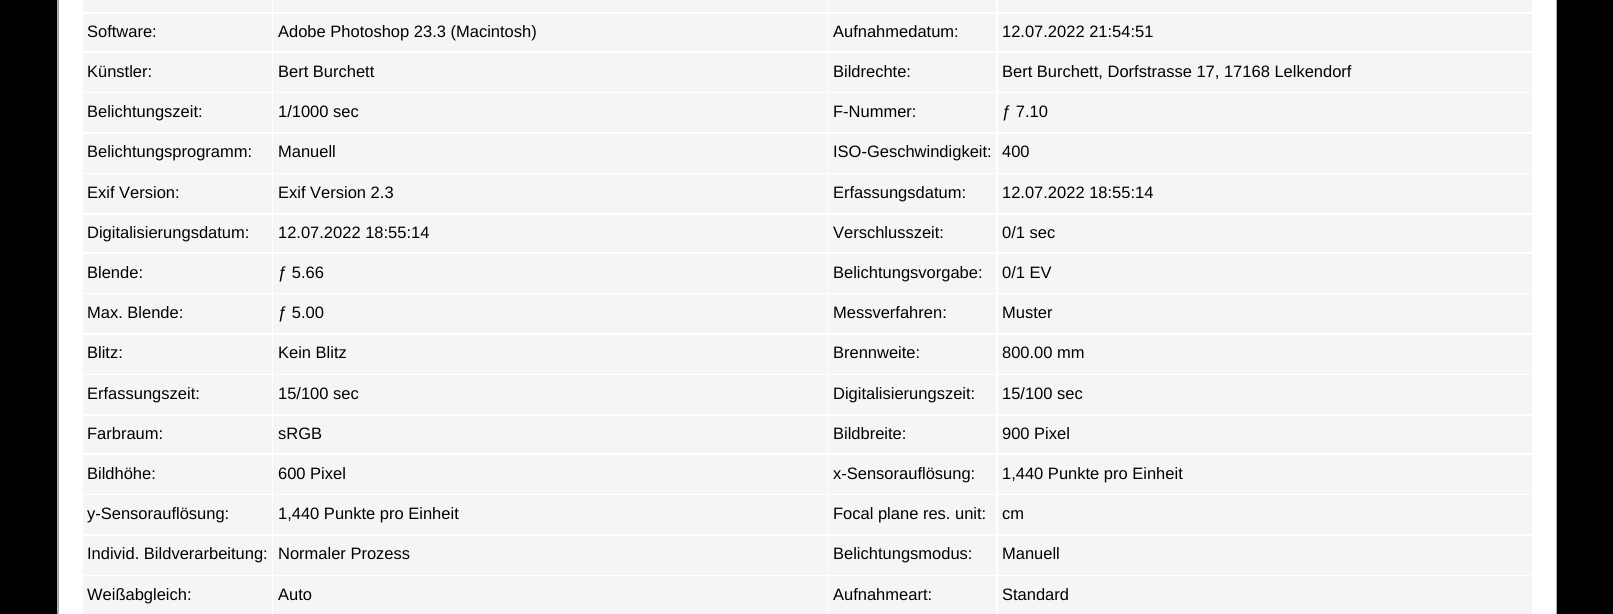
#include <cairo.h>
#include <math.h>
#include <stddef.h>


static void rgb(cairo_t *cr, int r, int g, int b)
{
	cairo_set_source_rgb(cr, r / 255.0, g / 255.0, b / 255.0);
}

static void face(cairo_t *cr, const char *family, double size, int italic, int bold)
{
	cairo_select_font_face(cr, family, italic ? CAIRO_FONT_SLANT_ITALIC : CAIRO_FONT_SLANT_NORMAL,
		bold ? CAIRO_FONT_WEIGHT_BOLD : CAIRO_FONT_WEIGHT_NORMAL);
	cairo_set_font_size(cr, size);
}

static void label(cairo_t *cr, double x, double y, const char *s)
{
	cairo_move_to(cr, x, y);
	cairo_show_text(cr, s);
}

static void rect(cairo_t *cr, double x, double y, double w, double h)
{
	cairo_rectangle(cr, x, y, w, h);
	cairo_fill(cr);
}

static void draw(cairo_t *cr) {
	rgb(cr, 0, 0, 0);
	cairo_paint(cr);
	rgb(cr, 165, 173, 174);
	rect(cr, 57, 0, 1500, 614);
	rgb(cr, 255, 255, 255);
	rect(cr, 59, 0, 1497, 614);
	rgb(cr, 245, 245, 245);
	rect(cr, 83, 0, 189, 12);
	rect(cr, 273, 0, 554, 12);
	rect(cr, 828, 0, 168, 12);
	rect(cr, 998, 0, 534, 12);
	rect(cr, 83, 14, 189, 37);
	face(cr, "Liberation Sans", 16.5, 0, 0);
	rgb(cr, 0, 0, 0);
	label(cr, 87, 37, "Software:");
	rgb(cr, 245, 245, 245);
	rect(cr, 273, 14, 554, 37);
	rgb(cr, 0, 0, 0);
	label(cr, 278, 37, "Adobe Photoshop 23.3 (Macintosh)");
	rgb(cr, 245, 245, 245);
	rect(cr, 828, 14, 168, 37);
	rgb(cr, 0, 0, 0);
	label(cr, 833, 37, "Aufnahmedatum:");
	rgb(cr, 245, 245, 245);
	rect(cr, 998, 14, 534, 37);
	rgb(cr, 0, 0, 0);
	label(cr, 1002, 37, "12.07.2022 21:54:51");
	rgb(cr, 245, 245, 245);
	rect(cr, 83, 53, 189, 39);
	rgb(cr, 0, 0, 0);
	label(cr, 87, 77, "Künstler:");
	rgb(cr, 245, 245, 245);
	rect(cr, 273, 53, 554, 39);
	rgb(cr, 0, 0, 0);
	label(cr, 278, 77, "Bert Burchett");
	rgb(cr, 245, 245, 245);
	rect(cr, 828, 53, 168, 39);
	rgb(cr, 0, 0, 0);
	label(cr, 833, 77, "Bildrechte:");
	rgb(cr, 245, 245, 245);
	rect(cr, 998, 53, 534, 39);
	rgb(cr, 0, 0, 0);
	label(cr, 1002, 77, "Bert Burchett, Dorfstrasse 17, 17168 Lelkendorf");
	rgb(cr, 245, 245, 245);
	rect(cr, 83, 93, 189, 39);
	rgb(cr, 0, 0, 0);
	label(cr, 87, 117, "Belichtungszeit:");
	rgb(cr, 245, 245, 245);
	rect(cr, 273, 93, 554, 39);
	rgb(cr, 0, 0, 0);
	label(cr, 278, 117, "1/1000 sec");
	rgb(cr, 245, 245, 245);
	rect(cr, 828, 93, 168, 39);
	rgb(cr, 0, 0, 0);
	label(cr, 833, 117, "F-Nummer:");
	rgb(cr, 245, 245, 245);
	rect(cr, 998, 93, 534, 39);
	rgb(cr, 0, 0, 0);
	label(cr, 1002, 117, "ƒ 7.10");
	rgb(cr, 245, 245, 245);
	rect(cr, 83, 134, 189, 39);
	rgb(cr, 0, 0, 0);
	label(cr, 87, 157, "Belichtungsprogramm:");
	rgb(cr, 245, 245, 245);
	rect(cr, 273, 134, 554, 39);
	rgb(cr, 0, 0, 0);
	label(cr, 278, 157, "Manuell");
	rgb(cr, 245, 245, 245);
	rect(cr, 828, 134, 168, 39);
	rgb(cr, 0, 0, 0);
	label(cr, 833, 157, "ISO-Geschwindigkeit:");
	rgb(cr, 245, 245, 245);
	rect(cr, 998, 134, 534, 39);
	rgb(cr, 0, 0, 0);
	label(cr, 1002, 157, "400");
	rgb(cr, 245, 245, 245);
	rect(cr, 83, 174, 189, 39);
	rgb(cr, 0, 0, 0);
	label(cr, 87, 198, "Exif Version:");
	rgb(cr, 245, 245, 245);
	rect(cr, 273, 174, 554, 39);
	rgb(cr, 0, 0, 0);
	label(cr, 278, 198, "Exif Version 2.3");
	rgb(cr, 245, 245, 245);
	rect(cr, 828, 174, 168, 39);
	rgb(cr, 0, 0, 0);
	label(cr, 833, 198, "Erfassungsdatum:");
	rgb(cr, 245, 245, 245);
	rect(cr, 998, 174, 534, 39);
	rgb(cr, 0, 0, 0);
	label(cr, 1002, 198, "12.07.2022 18:55:14");
	rgb(cr, 245, 245, 245);
	rect(cr, 83, 215, 189, 37);
	rgb(cr, 0, 0, 0);
	label(cr, 87, 238, "Digitalisierungsdatum:");
	rgb(cr, 245, 245, 245);
	rect(cr, 273, 215, 554, 37);
	rgb(cr, 0, 0, 0);
	label(cr, 278, 238, "12.07.2022 18:55:14");
	rgb(cr, 245, 245, 245);
	rect(cr, 828, 215, 168, 37);
	rgb(cr, 0, 0, 0);
	label(cr, 833, 238, "Verschlusszeit:");
	rgb(cr, 245, 245, 245);
	rect(cr, 998, 215, 534, 37);
	rgb(cr, 0, 0, 0);
	label(cr, 1002, 238, "0/1 sec");
	rgb(cr, 245, 245, 245);
	rect(cr, 83, 254, 189, 39);
	rgb(cr, 0, 0, 0);
	label(cr, 87, 278, "Blende:");
	rgb(cr, 245, 245, 245);
	rect(cr, 273, 254, 554, 39);
	rgb(cr, 0, 0, 0);
	label(cr, 278, 278, "ƒ 5.66");
	rgb(cr, 245, 245, 245);
	rect(cr, 828, 254, 168, 39);
	rgb(cr, 0, 0, 0);
	label(cr, 833, 278, "Belichtungsvorgabe:");
	rgb(cr, 245, 245, 245);
	rect(cr, 998, 254, 534, 39);
	rgb(cr, 0, 0, 0);
	label(cr, 1002, 278, "0/1 EV");
	rgb(cr, 245, 245, 245);
	rect(cr, 83, 294, 189, 39);
	rgb(cr, 0, 0, 0);
	label(cr, 87, 318, "Max. Blende:");
	rgb(cr, 245, 245, 245);
	rect(cr, 273, 294, 554, 39);
	rgb(cr, 0, 0, 0);
	label(cr, 278, 318, "ƒ 5.00");
	rgb(cr, 245, 245, 245);
	rect(cr, 828, 294, 168, 39);
	rgb(cr, 0, 0, 0);
	label(cr, 833, 318, "Messverfahren:");
	rgb(cr, 245, 245, 245);
	rect(cr, 998, 294, 534, 39);
	rgb(cr, 0, 0, 0);
	label(cr, 1002, 318, "Muster");
	rgb(cr, 245, 245, 245);
	rect(cr, 83, 335, 189, 39);
	rgb(cr, 0, 0, 0);
	label(cr, 87, 358, "Blitz:");
	rgb(cr, 245, 245, 245);
	rect(cr, 273, 335, 554, 39);
	rgb(cr, 0, 0, 0);
	label(cr, 278, 358, "Kein Blitz");
	rgb(cr, 245, 245, 245);
	rect(cr, 828, 335, 168, 39);
	rgb(cr, 0, 0, 0);
	label(cr, 833, 358, "Brennweite:");
	rgb(cr, 245, 245, 245);
	rect(cr, 998, 335, 534, 39);
	rgb(cr, 0, 0, 0);
	label(cr, 1002, 358, "800.00 mm");
	rgb(cr, 245, 245, 245);
	rect(cr, 83, 375, 189, 39);
	rgb(cr, 0, 0, 0);
	label(cr, 87, 399, "Erfassungszeit:");
	rgb(cr, 245, 245, 245);
	rect(cr, 273, 375, 554, 39);
	rgb(cr, 0, 0, 0);
	label(cr, 278, 399, "15/100 sec");
	rgb(cr, 245, 245, 245);
	rect(cr, 828, 375, 168, 39);
	rgb(cr, 0, 0, 0);
	label(cr, 833, 399, "Digitalisierungszeit:");
	rgb(cr, 245, 245, 245);
	rect(cr, 998, 375, 534, 39);
	rgb(cr, 0, 0, 0);
	label(cr, 1002, 399, "15/100 sec");
	rgb(cr, 245, 245, 245);
	rect(cr, 83, 416, 189, 37);
	rgb(cr, 0, 0, 0);
	label(cr, 87, 439, "Farbraum:");
	rgb(cr, 245, 245, 245);
	rect(cr, 273, 416, 554, 37);
	rgb(cr, 0, 0, 0);
	label(cr, 278, 439, "sRGB");
	rgb(cr, 245, 245, 245);
	rect(cr, 828, 416, 168, 37);
	rgb(cr, 0, 0, 0);
	label(cr, 833, 439, "Bildbreite:");
	rgb(cr, 245, 245, 245);
	rect(cr, 998, 416, 534, 37);
	rgb(cr, 0, 0, 0);
	label(cr, 1002, 439, "900 Pixel");
	rgb(cr, 245, 245, 245);
	rect(cr, 83, 455, 189, 39);
	rgb(cr, 0, 0, 0);
	label(cr, 87, 479, "Bildhöhe:");
	rgb(cr, 245, 245, 245);
	rect(cr, 273, 455, 554, 39);
	rgb(cr, 0, 0, 0);
	label(cr, 278, 479, "600 Pixel");
	rgb(cr, 245, 245, 245);
	rect(cr, 828, 455, 168, 39);
	rgb(cr, 0, 0, 0);
	label(cr, 833, 479, "x-Sensorauflösung:");
	rgb(cr, 245, 245, 245);
	rect(cr, 998, 455, 534, 39);
	rgb(cr, 0, 0, 0);
	label(cr, 1002, 479, "1,440 Punkte pro Einheit");
	rgb(cr, 245, 245, 245);
	rect(cr, 83, 495, 189, 39);
	rgb(cr, 0, 0, 0);
	label(cr, 87, 519, "y-Sensorauflösung:");
	rgb(cr, 245, 245, 245);
	rect(cr, 273, 495, 554, 39);
	rgb(cr, 0, 0, 0);
	label(cr, 278, 519, "1,440 Punkte pro Einheit");
	rgb(cr, 245, 245, 245);
	rect(cr, 828, 495, 168, 39);
	rgb(cr, 0, 0, 0);
	label(cr, 833, 519, "Focal plane res. unit:");
	rgb(cr, 245, 245, 245);
	rect(cr, 998, 495, 534, 39);
	rgb(cr, 0, 0, 0);
	label(cr, 1002, 519, "cm");
	rgb(cr, 245, 245, 245);
	rect(cr, 83, 536, 189, 39);
	rgb(cr, 0, 0, 0);
	label(cr, 87, 559, "Individ. Bildverarbeitung:");
	rgb(cr, 245, 245, 245);
	rect(cr, 273, 536, 554, 39);
	rgb(cr, 0, 0, 0);
	label(cr, 278, 559, "Normaler Prozess");
	rgb(cr, 245, 245, 245);
	rect(cr, 828, 536, 168, 39);
	rgb(cr, 0, 0, 0);
	label(cr, 833, 559, "Belichtungsmodus:");
	rgb(cr, 245, 245, 245);
	rect(cr, 998, 536, 534, 39);
	rgb(cr, 0, 0, 0);
	label(cr, 1002, 559, "Manuell");
	rgb(cr, 245, 245, 245);
	rect(cr, 83, 576, 189, 38);
	rgb(cr, 0, 0, 0);
	label(cr, 87, 600, "Weißabgleich:");
	rgb(cr, 245, 245, 245);
	rect(cr, 273, 576, 554, 38);
	rgb(cr, 0, 0, 0);
	label(cr, 278, 600, "Auto");
	rgb(cr, 245, 245, 245);
	rect(cr, 828, 576, 168, 38);
	rgb(cr, 0, 0, 0);
	label(cr, 833, 600, "Aufnahmeart:");
	rgb(cr, 245, 245, 245);
	rect(cr, 998, 576, 534, 38);
	rgb(cr, 0, 0, 0);
	label(cr, 1002, 600, "Standard");
}

int main(void) {
	cairo_surface_t *surface = cairo_image_surface_create(CAIRO_FORMAT_RGB24, 1613, 614);
	cairo_t *cr = cairo_create(surface);
	cairo_font_options_t *options = cairo_font_options_create();
	cairo_font_options_set_hint_metrics(options, CAIRO_HINT_METRICS_OFF);
	cairo_font_options_set_hint_style(options, CAIRO_HINT_STYLE_NONE);
	cairo_set_font_options(cr, options);
	cairo_set_miter_limit(cr, 4);
	draw(cr);
	cairo_surface_write_to_png(surface, "render.png");
	cairo_font_options_destroy(options);
	cairo_destroy(cr);
	cairo_surface_destroy(surface);
	return 0;
}
